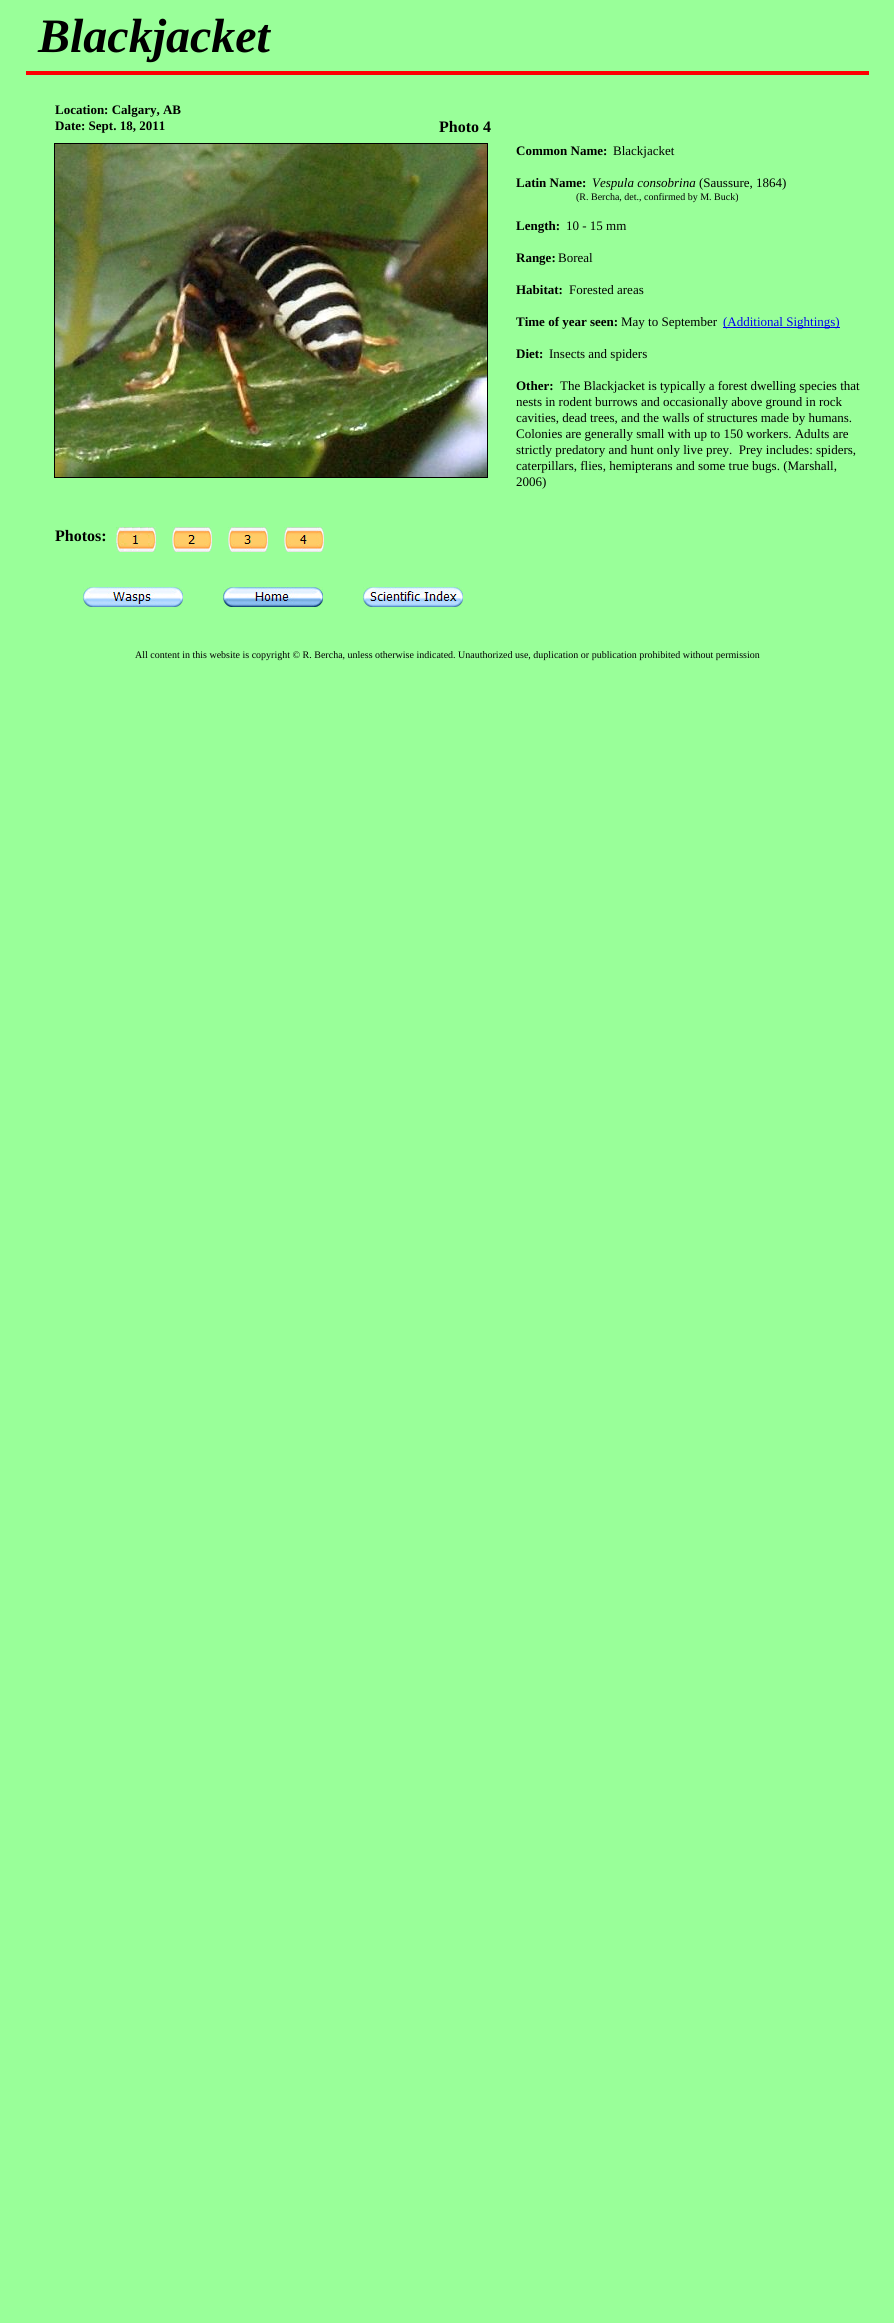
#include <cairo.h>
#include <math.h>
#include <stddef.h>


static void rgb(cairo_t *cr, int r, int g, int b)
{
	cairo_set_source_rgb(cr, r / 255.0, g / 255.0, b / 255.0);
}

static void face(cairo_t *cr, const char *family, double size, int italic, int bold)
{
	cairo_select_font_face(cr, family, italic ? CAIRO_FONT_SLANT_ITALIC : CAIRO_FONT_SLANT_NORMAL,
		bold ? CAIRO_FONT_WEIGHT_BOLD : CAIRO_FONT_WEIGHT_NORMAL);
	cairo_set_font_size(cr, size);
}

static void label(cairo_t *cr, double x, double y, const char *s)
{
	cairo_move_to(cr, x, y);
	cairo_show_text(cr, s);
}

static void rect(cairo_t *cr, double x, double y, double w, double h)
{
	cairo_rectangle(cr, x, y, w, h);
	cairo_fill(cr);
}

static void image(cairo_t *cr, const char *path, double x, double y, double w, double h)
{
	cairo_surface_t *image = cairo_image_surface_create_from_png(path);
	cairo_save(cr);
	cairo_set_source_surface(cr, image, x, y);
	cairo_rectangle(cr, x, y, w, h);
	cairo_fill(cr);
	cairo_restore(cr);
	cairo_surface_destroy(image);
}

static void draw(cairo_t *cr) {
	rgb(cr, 153, 255, 153);
	cairo_paint(cr);
	face(cr, "Liberation Serif", 48, 1, 1);
	rgb(cr, 0, 0, 0);
	label(cr, 38, 52, "Blackjacket");
	rgb(cr, 255, 0, 0);
	rect(cr, 26, 71, 843, 4);
	face(cr, "Liberation Serif", 13, 0, 1);
	rgb(cr, 0, 0, 0);
	label(cr, 55, 114, "Location: Calgary, AB");
	label(cr, 55, 130, "Date: Sept. 18, 2011");
	face(cr, "Liberation Serif", 16, 0, 1);
	label(cr, 439, 132, "Photo 4");
	cairo_rectangle(cr, 54.5, 143.5, 433, 334);
	cairo_set_line_width(cr, 1);
	cairo_stroke(cr);
	image(cr, "image0.png", 55, 144, 432, 333);
	face(cr, "Liberation Serif", 13, 0, 1);
	label(cr, 516, 155, "Common Name:");
	face(cr, "Liberation Serif", 13, 0, 0);
	label(cr, 613, 155, "Blackjacket");
	face(cr, "Liberation Serif", 13, 0, 1);
	label(cr, 516, 187, "Latin Name:");
	face(cr, "Liberation Serif", 13, 1, 0);
	label(cr, 592, 187, "Vespula consobrina");
	face(cr, "Liberation Serif", 13, 0, 0);
	label(cr, 699, 187, "(Saussure, 1864)");
	face(cr, "Liberation Serif", 10, 0, 0);
	label(cr, 576, 200, "(R. Bercha, det., confirmed by M. Buck)");
	face(cr, "Liberation Serif", 13, 0, 1);
	label(cr, 516, 230, "Length:");
	face(cr, "Liberation Serif", 13, 0, 0);
	label(cr, 566, 230, "10 - 15 mm");
	face(cr, "Liberation Serif", 13, 0, 1);
	label(cr, 516, 262, "Range:");
	face(cr, "Liberation Serif", 13, 0, 0);
	label(cr, 558, 262, "Boreal");
	face(cr, "Liberation Serif", 13, 0, 1);
	label(cr, 516, 294, "Habitat:");
	face(cr, "Liberation Serif", 13, 0, 0);
	label(cr, 569, 294, "Forested areas");
	face(cr, "Liberation Serif", 13, 0, 1);
	label(cr, 516, 326, "Time of year seen:");
	face(cr, "Liberation Serif", 13, 0, 0);
	label(cr, 621, 326, "May to September");
	rgb(cr, 0, 0, 238);
	rect(cr, 723, 327, 117, 1);
	label(cr, 723, 326, "(Additional Sightings)");
	face(cr, "Liberation Serif", 13, 0, 1);
	rgb(cr, 0, 0, 0);
	label(cr, 516, 358, "Diet:");
	face(cr, "Liberation Serif", 13, 0, 0);
	label(cr, 549, 358, "Insects and spiders");
	face(cr, "Liberation Serif", 13, 0, 1);
	label(cr, 516, 390, "Other:");
	face(cr, "Liberation Serif", 13, 0, 0);
	label(cr, 560, 390, "The Blackjacket is typically a forest dwelling species that");
	label(cr, 516, 406, "nests in rodent burrows and occasionally above ground in rock");
	label(cr, 516, 422, "cavities, dead trees, and the walls of structures made by humans.");
	label(cr, 516, 438, "Colonies are generally small with up to 150 workers. Adults are");
	label(cr, 516, 454, "strictly predatory and hunt only live prey.  Prey includes: spiders,");
	label(cr, 516, 470, "caterpillars, flies, hemipterans and some true bugs. (Marshall,");
	label(cr, 516, 486, "2006)");
	face(cr, "Liberation Serif", 16, 0, 1);
	label(cr, 55, 541, "Photos:");
	image(cr, "image1.png", 116, 527, 40, 25);
	image(cr, "image2.png", 172, 527, 40, 25);
	image(cr, "image3.png", 228, 527, 40, 25);
	image(cr, "image4.png", 284, 527, 40, 25);
	image(cr, "image5.png", 83, 587, 100, 20);
	image(cr, "image6.png", 223, 587, 100, 20);
	image(cr, "image7.png", 363, 587, 100, 20);
	face(cr, "Liberation Serif", 10, 0, 0);
	label(cr, 135, 658, "All content in this website is copyright © R. Bercha, unless otherwise indicated. Unauthorized use, duplication or publication prohibited without permission");
}

int main(void) {
	cairo_surface_t *surface = cairo_image_surface_create(CAIRO_FORMAT_RGB24, 894, 2323);
	cairo_t *cr = cairo_create(surface);
	cairo_font_options_t *options = cairo_font_options_create();
	cairo_font_options_set_hint_metrics(options, CAIRO_HINT_METRICS_OFF);
	cairo_font_options_set_hint_style(options, CAIRO_HINT_STYLE_NONE);
	cairo_set_font_options(cr, options);
	cairo_set_miter_limit(cr, 4);
	draw(cr);
	cairo_surface_write_to_png(surface, "render.png");
	cairo_font_options_destroy(options);
	cairo_destroy(cr);
	cairo_surface_destroy(surface);
	return 0;
}
